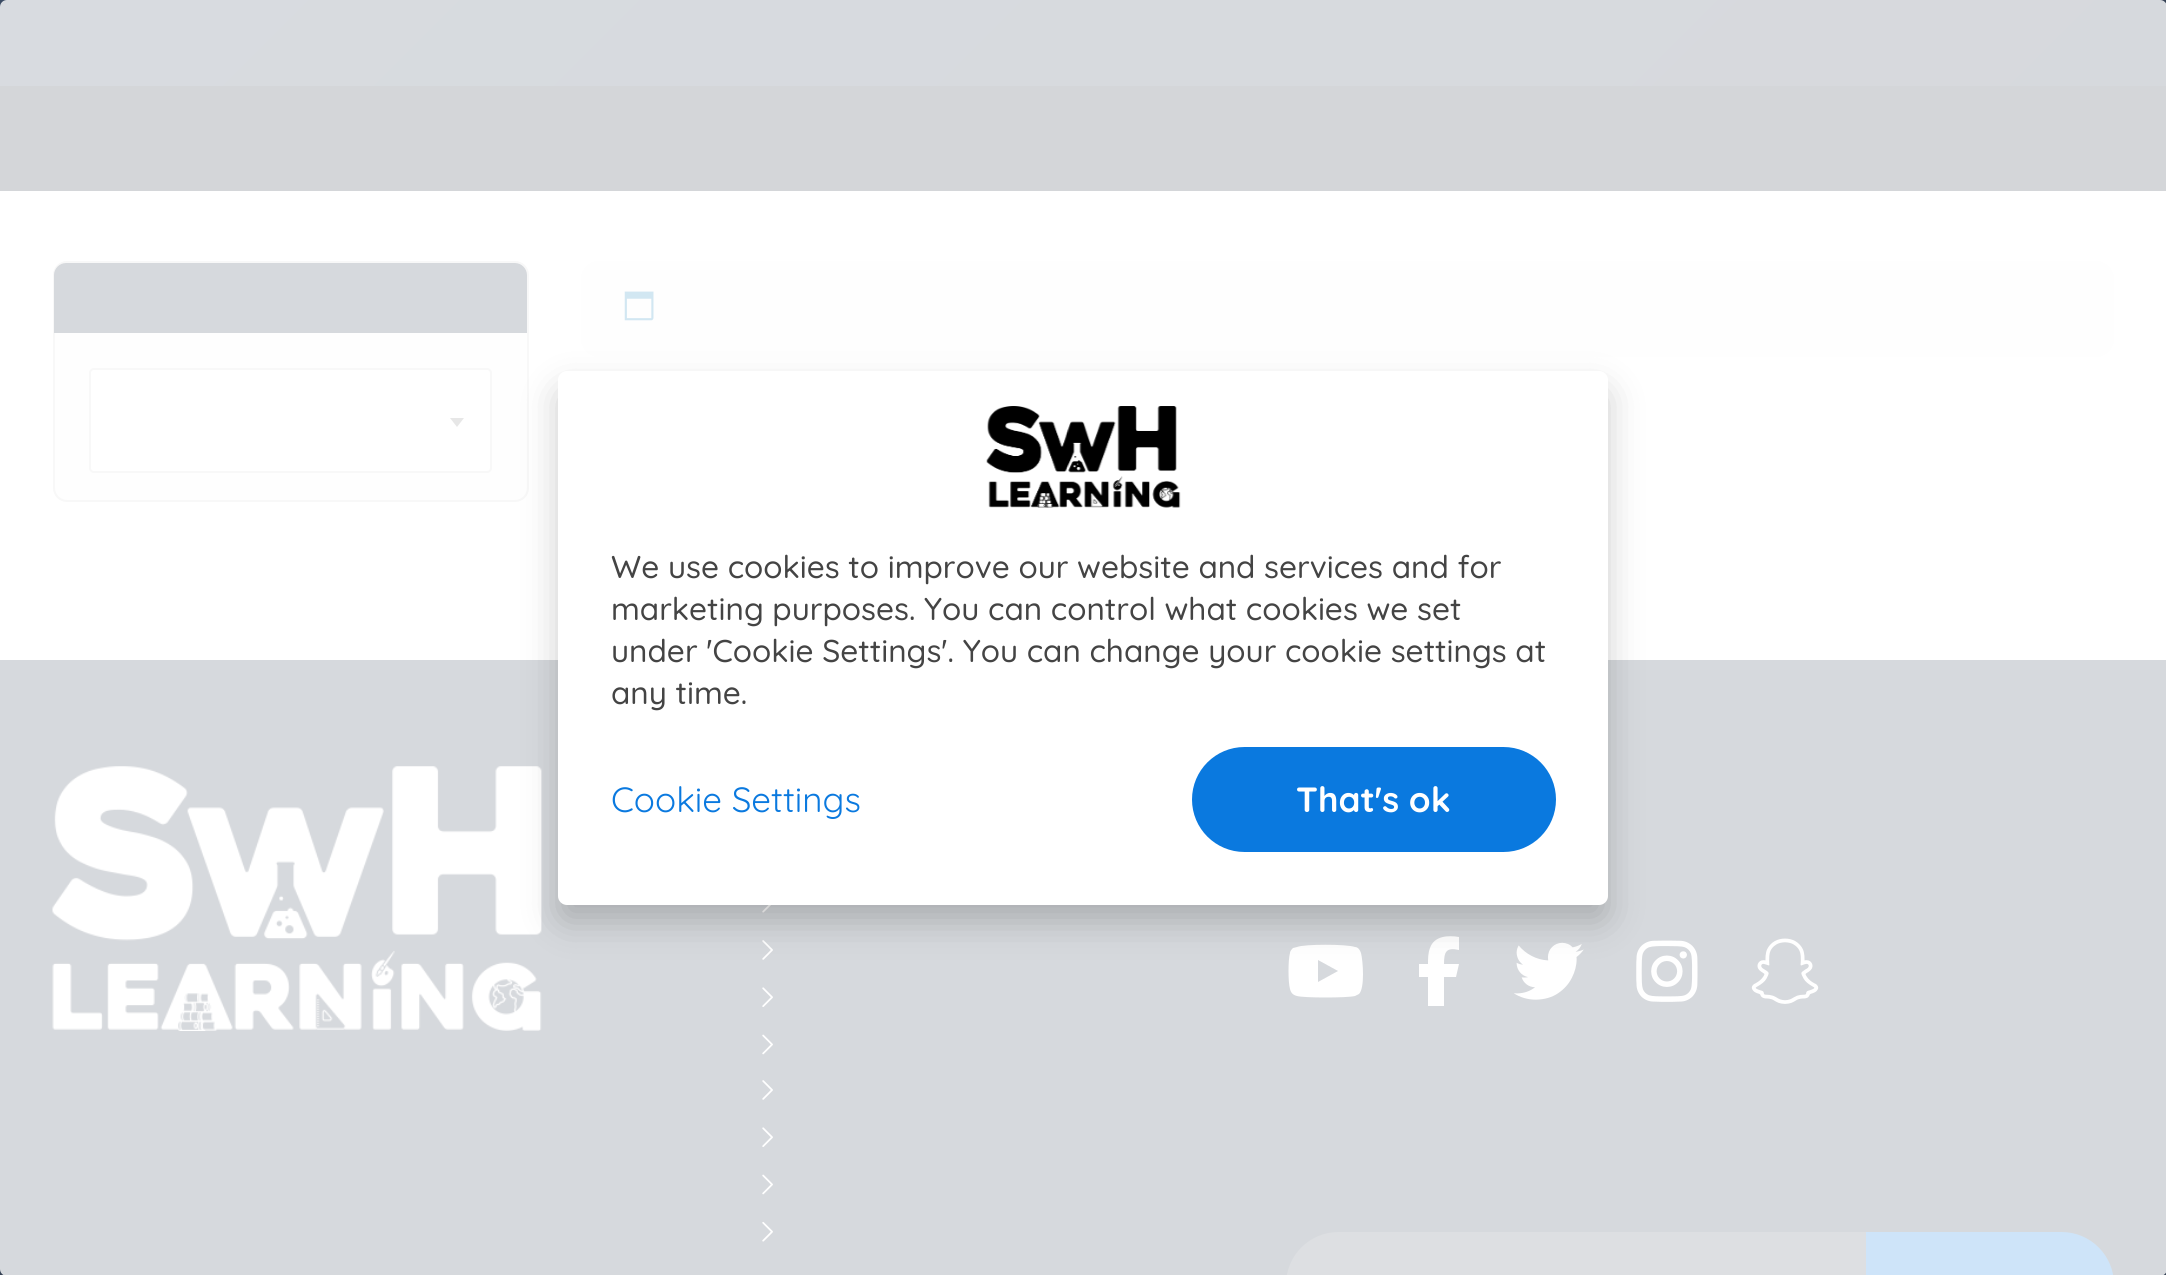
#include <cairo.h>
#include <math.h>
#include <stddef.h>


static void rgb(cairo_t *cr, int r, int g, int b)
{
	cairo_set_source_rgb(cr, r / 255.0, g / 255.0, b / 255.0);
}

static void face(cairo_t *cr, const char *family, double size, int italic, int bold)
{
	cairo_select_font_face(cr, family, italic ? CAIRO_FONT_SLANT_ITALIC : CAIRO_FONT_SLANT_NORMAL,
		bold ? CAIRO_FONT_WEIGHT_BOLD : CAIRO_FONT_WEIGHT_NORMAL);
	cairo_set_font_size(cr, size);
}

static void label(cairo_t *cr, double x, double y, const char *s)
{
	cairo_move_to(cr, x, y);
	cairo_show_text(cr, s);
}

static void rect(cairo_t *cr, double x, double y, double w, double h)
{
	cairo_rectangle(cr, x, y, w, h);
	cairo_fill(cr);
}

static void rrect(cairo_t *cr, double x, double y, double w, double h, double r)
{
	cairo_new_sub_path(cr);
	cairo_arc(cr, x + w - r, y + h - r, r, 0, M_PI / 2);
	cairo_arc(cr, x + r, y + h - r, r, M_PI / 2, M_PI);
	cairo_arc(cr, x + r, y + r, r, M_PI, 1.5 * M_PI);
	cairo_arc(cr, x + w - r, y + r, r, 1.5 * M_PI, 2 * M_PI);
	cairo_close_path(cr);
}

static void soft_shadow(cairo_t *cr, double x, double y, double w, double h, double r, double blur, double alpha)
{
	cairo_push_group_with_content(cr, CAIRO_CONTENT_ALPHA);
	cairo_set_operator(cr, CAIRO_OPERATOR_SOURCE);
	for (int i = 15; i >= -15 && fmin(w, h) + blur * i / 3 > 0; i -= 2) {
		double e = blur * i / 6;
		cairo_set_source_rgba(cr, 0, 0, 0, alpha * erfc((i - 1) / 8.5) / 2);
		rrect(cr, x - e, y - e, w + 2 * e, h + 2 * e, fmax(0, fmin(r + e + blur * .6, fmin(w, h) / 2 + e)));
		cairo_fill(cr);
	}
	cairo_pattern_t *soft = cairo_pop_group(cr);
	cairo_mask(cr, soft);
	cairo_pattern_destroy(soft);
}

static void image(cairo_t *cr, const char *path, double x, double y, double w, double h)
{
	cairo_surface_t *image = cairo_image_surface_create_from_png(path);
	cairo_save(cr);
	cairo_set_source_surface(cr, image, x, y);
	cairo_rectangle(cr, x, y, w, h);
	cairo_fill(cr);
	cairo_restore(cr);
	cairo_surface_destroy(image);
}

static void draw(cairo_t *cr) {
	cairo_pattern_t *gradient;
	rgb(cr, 255, 255, 255);
	cairo_paint(cr);
	gradient = cairo_pattern_create_linear(437, -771, 1730, 522);
	cairo_pattern_add_color_stop_rgba(gradient, 0, 0.235, 0.302, 0.4, 1);
	cairo_pattern_add_color_stop_rgba(gradient, 1, 0.204, 0.255, 0.329, 1);
	cairo_set_source(cr, gradient);
	cairo_pattern_destroy(gradient);
	rect(cr, 0, 0, 2166, 86);
	rgb(cr, 42, 52, 67);
	rect(cr, 0, 86, 2166, 105);
	rgb(cr, 248, 248, 248);
	rrect(cr, 54, 262, 474, 239, 13);
	cairo_fill_preserve(cr);
	rgb(cr, 218, 218, 218);
	cairo_stroke(cr);
	rgb(cr, 52, 65, 84);
	cairo_new_path(cr);
	cairo_move_to(cr, 66, 263);
	cairo_line_to(cr, 515, 263);
	cairo_curve_to(cr, 521.5, 263, 527, 268.5, 527, 275);
	cairo_line_to(cr, 527, 333);
	cairo_line_to(cr, 54, 333);
	cairo_line_to(cr, 54, 275);
	cairo_curve_to(cr, 54, 268.5, 59.5, 263, 66, 263);
	cairo_close_path(cr);
	cairo_fill(cr);
	rgb(cr, 255, 255, 255);
	rrect(cr, 90, 369, 401, 103, 4);
	cairo_fill_preserve(cr);
	rgb(cr, 218, 218, 218);
	cairo_stroke(cr);
	rgb(cr, 136, 136, 136);
	cairo_new_path(cr);
	cairo_move_to(cr, 450, 418);
	cairo_line_to(cr, 464, 418);
	cairo_line_to(cr, 457, 427);
	cairo_close_path(cr);
	cairo_fill(cr);
	rgb(cr, 248, 248, 248);
	rrect(cr, 581, 261, 1533, 96, 18);
	cairo_fill(cr);
	image(cr, "image0.png", 624, 291, 30, 30);
	rgb(cr, 52, 65, 84);
	rect(cr, 0, 660, 2166, 615);
	image(cr, "image1.png", 52, 766, 490, 265);
	image(cr, "image2.png", 762, 905, 9, 8);
	image(cr, "image3.png", 762, 940, 11, 20);
	image(cr, "image4.png", 762, 987, 11, 20);
	image(cr, "image5.png", 762, 1034, 11, 21);
	image(cr, "image3.png", 762, 1080, 11, 20);
	image(cr, "image4.png", 762, 1127, 11, 20);
	image(cr, "image5.png", 762, 1174, 11, 21);
	image(cr, "image6.png", 762, 1221, 11, 21);
	rgb(cr, 255, 255, 255);
	cairo_new_path(cr);
	cairo_move_to(cr, 1361, 953);
	cairo_curve_to(cr, 1360, 950, 1358, 947, 1355, 947);
	cairo_curve_to(cr, 1347, 944, 1304, 944, 1297, 947);
	cairo_line_to(cr, 1293, 948);
	cairo_curve_to(cr, 1292, 949, 1290, 951, 1290, 953);
	cairo_curve_to(cr, 1288, 960, 1288, 982, 1290, 989);
	cairo_curve_to(cr, 1291, 993, 1293, 995, 1297, 996);
	cairo_curve_to(cr, 1304, 998, 1347, 998, 1355, 996);
	cairo_line_to(cr, 1359, 994);
	cairo_curve_to(cr, 1365, 988, 1363, 961, 1361, 953);
	cairo_close_path(cr);
	cairo_move_to(cr, 1318, 982);
	cairo_line_to(cr, 1318, 960);
	cairo_line_to(cr, 1318, 982);
	cairo_line_to(cr, 1318, 960);
	cairo_line_to(cr, 1338, 971);
	cairo_close_path(cr);
	cairo_fill(cr);
	cairo_new_path(cr);
	cairo_move_to(cr, 1428, 977);
	cairo_line_to(cr, 1428, 1006);
	cairo_line_to(cr, 1428, 977);
	cairo_line_to(cr, 1428, 1006);
	cairo_line_to(cr, 1444, 1006);
	cairo_line_to(cr, 1444, 977);
	cairo_line_to(cr, 1456, 977);
	cairo_line_to(cr, 1459, 964);
	cairo_line_to(cr, 1444, 964);
	cairo_curve_to(cr, 1444, 952, 1446, 947, 1459, 950);
	cairo_line_to(cr, 1459, 937);
	cairo_curve_to(cr, 1448, 935, 1434, 936, 1430, 948);
	cairo_curve_to(cr, 1428, 953, 1428, 959, 1428, 964);
	cairo_line_to(cr, 1419, 964);
	cairo_line_to(cr, 1419, 977);
	cairo_close_path(cr);
	cairo_fill(cr);
	image(cr, "image7.png", 1514, 942, 70, 58);
	image(cr, "image8.png", 1636, 940, 62, 62);
	image(cr, "image9.png", 1751, 938, 68, 66);
	rgb(cr, 83, 94, 109);
	cairo_new_path(cr);
	cairo_move_to(cr, 1338.5, 1232);
	cairo_line_to(cr, 1866, 1232);
	cairo_line_to(cr, 1866, 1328);
	cairo_line_to(cr, 1338.5, 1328);
	cairo_curve_to(cr, 1309.5, 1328, 1286, 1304.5, 1286, 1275.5);
	cairo_line_to(cr, 1286, 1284.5);
	cairo_curve_to(cr, 1286, 1255.5, 1309.5, 1232, 1338.5, 1232);
	cairo_close_path(cr);
	cairo_fill(cr);
	rgb(cr, 10, 121, 223);
	cairo_new_path(cr);
	cairo_move_to(cr, 1866, 1232);
	cairo_line_to(cr, 2061.5, 1232);
	cairo_curve_to(cr, 2090.5, 1232, 2114, 1255.5, 2114, 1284.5);
	cairo_line_to(cr, 2114, 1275.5);
	cairo_curve_to(cr, 2114, 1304.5, 2090.5, 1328, 2061.5, 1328);
	cairo_line_to(cr, 1866, 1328);
	cairo_close_path(cr);
	cairo_fill(cr);
	cairo_set_source_rgba(cr, 1, 1, 1, 0.8);
	rrect(cr, 0, 0, 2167, 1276, 7);
	cairo_fill(cr);
	rgb(cr, 0, 0, 0);
	soft_shadow(cr, 558, 389, 1050, 533, 9, 17.5, 0.2);
	rgb(cr, 255, 255, 255);
	rrect(cr, 558, 371, 1050, 534, 9);
	cairo_fill(cr);
	image(cr, "image10.png", 986, 406, 195, 102);
	face(cr, "Quicksand Medium", 31.5, 0, 0);
	rgb(cr, 68, 68, 68);
	label(cr, 611, 578, "We use cookies to improve our website and services and for");
	label(cr, 611, 620, "marketing purposes. You can control what cookies we set");
	label(cr, 611, 662, "under 'Cookie Settings'. You can change your cookie settings at");
	label(cr, 611, 704, "any time.");
	face(cr, "Quicksand", 35, 0, 0);
	rgb(cr, 10, 121, 223);
	label(cr, 611, 812, "Cookie Settings");
	rrect(cr, 1192, 747, 364, 105, 52.5);
	cairo_fill(cr);
	face(cr, "Quicksand", 35, 0, 1);
	rgb(cr, 255, 255, 255);
	label(cr, 1296, 812, "That's ok");
}

int main(void) {
	cairo_surface_t *surface = cairo_image_surface_create(CAIRO_FORMAT_RGB24, 2166, 1275);
	cairo_t *cr = cairo_create(surface);
	cairo_font_options_t *options = cairo_font_options_create();
	cairo_font_options_set_hint_metrics(options, CAIRO_HINT_METRICS_OFF);
	cairo_font_options_set_hint_style(options, CAIRO_HINT_STYLE_NONE);
	cairo_set_font_options(cr, options);
	cairo_set_miter_limit(cr, 4);
	draw(cr);
	cairo_surface_write_to_png(surface, "render.png");
	cairo_font_options_destroy(options);
	cairo_destroy(cr);
	cairo_surface_destroy(surface);
	return 0;
}
